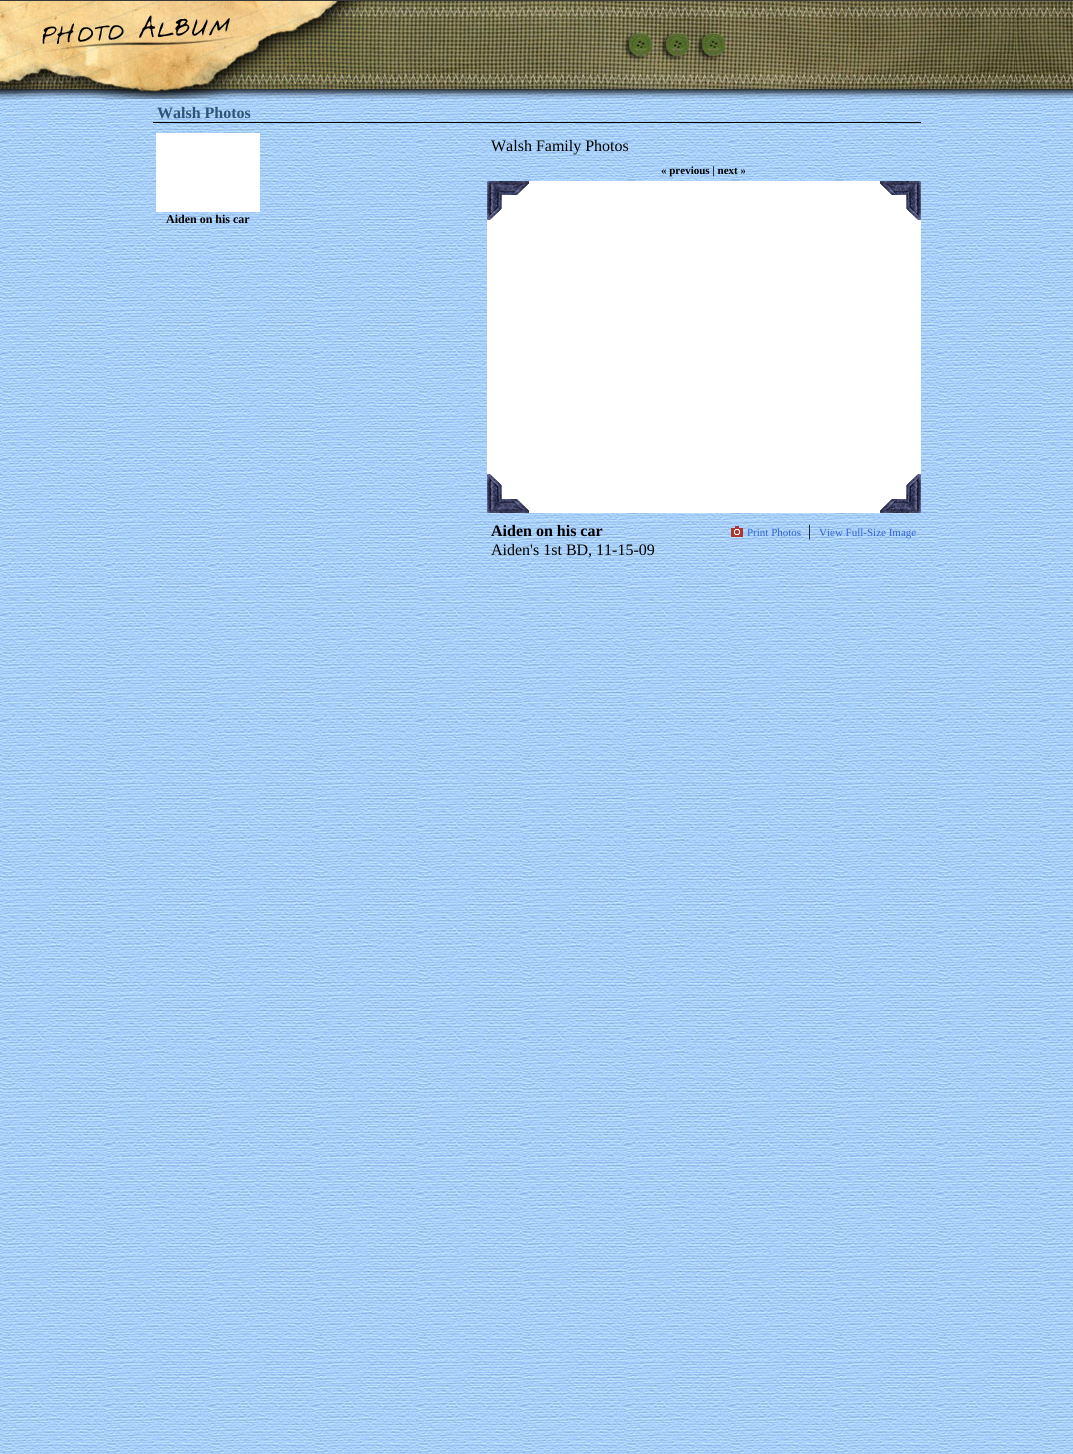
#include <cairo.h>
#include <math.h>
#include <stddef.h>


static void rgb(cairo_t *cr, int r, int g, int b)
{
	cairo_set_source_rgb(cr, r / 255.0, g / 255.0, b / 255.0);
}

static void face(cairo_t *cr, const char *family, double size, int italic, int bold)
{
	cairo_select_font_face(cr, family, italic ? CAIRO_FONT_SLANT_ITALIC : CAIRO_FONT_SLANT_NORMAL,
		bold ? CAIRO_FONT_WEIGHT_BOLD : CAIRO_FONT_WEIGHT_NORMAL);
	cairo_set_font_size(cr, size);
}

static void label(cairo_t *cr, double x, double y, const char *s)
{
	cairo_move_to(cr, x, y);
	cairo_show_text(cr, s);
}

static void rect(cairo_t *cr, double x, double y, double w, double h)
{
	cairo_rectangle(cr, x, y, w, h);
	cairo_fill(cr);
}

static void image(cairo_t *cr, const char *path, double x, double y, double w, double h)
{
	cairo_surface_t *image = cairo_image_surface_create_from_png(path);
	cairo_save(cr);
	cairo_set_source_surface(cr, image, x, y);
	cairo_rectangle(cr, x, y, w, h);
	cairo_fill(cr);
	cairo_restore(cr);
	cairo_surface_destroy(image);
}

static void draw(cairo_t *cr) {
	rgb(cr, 255, 255, 255);
	cairo_paint(cr);
	image(cr, "image0.png", 0, 99, 1073, 1355);
	rgb(cr, 57, 57, 57);
	rect(cr, 0, 0, 1073, 1);
	image(cr, "image1.png", 363, 1, 710, 98);
	image(cr, "image2.png", 0, 1, 363, 98);
	rgb(cr, 0, 0, 0);
	rect(cr, 153, 122, 768, 1);
	face(cr, "Liberation Serif", 16, 0, 1);
	rgb(cr, 48, 84, 120);
	label(cr, 157, 118, "Walsh Photos");
	rgb(cr, 255, 255, 255);
	rect(cr, 156, 133, 104, 79);
	face(cr, "Liberation Serif", 12, 0, 1);
	rgb(cr, 0, 0, 0);
	label(cr, 166, 223, "Aiden on his car");
	face(cr, "Liberation Serif", 16, 0, 0);
	label(cr, 491, 151, "Walsh Family Photos");
	face(cr, "Liberation Serif", 11, 0, 1);
	label(cr, 661, 174, "« previous | next »");
	rgb(cr, 255, 255, 255);
	rect(cr, 487, 181, 434, 332);
	image(cr, "image3.png", 487, 181, 42, 14);
	image(cr, "image4.png", 880, 181, 41, 14);
	image(cr, "image5.png", 487, 195, 15, 25);
	image(cr, "image6.png", 487, 474, 15, 25);
	image(cr, "image7.png", 906, 195, 15, 25);
	image(cr, "image8.png", 906, 474, 15, 25);
	image(cr, "image9.png", 487, 499, 42, 14);
	image(cr, "image10.png", 880, 499, 41, 14);
	face(cr, "Liberation Serif", 16, 0, 1);
	rgb(cr, 0, 0, 0);
	label(cr, 491, 536, "Aiden on his car");
	image(cr, "image11.png", 731, 526, 12, 11);
	face(cr, "Liberation Serif", 11, 0, 0);
	rgb(cr, 51, 102, 204);
	label(cr, 747, 536, "Print Photos");
	face(cr, "Liberation Serif", 16, 0, 0);
	rgb(cr, 0, 0, 0);
	label(cr, 808, 536, "|");
	face(cr, "Liberation Serif", 11, 0, 0);
	rgb(cr, 51, 102, 204);
	label(cr, 819, 536, "View Full-Size Image");
	face(cr, "Liberation Serif", 16, 0, 0);
	rgb(cr, 0, 0, 0);
	label(cr, 491, 555, "Aiden's 1st BD, 11-15-09");
}

int main(void) {
	cairo_surface_t *surface = cairo_image_surface_create(CAIRO_FORMAT_RGB24, 1073, 1454);
	cairo_t *cr = cairo_create(surface);
	cairo_font_options_t *options = cairo_font_options_create();
	cairo_font_options_set_hint_metrics(options, CAIRO_HINT_METRICS_OFF);
	cairo_font_options_set_hint_style(options, CAIRO_HINT_STYLE_NONE);
	cairo_set_font_options(cr, options);
	cairo_set_miter_limit(cr, 4);
	draw(cr);
	cairo_surface_write_to_png(surface, "render.png");
	cairo_font_options_destroy(options);
	cairo_destroy(cr);
	cairo_surface_destroy(surface);
	return 0;
}
